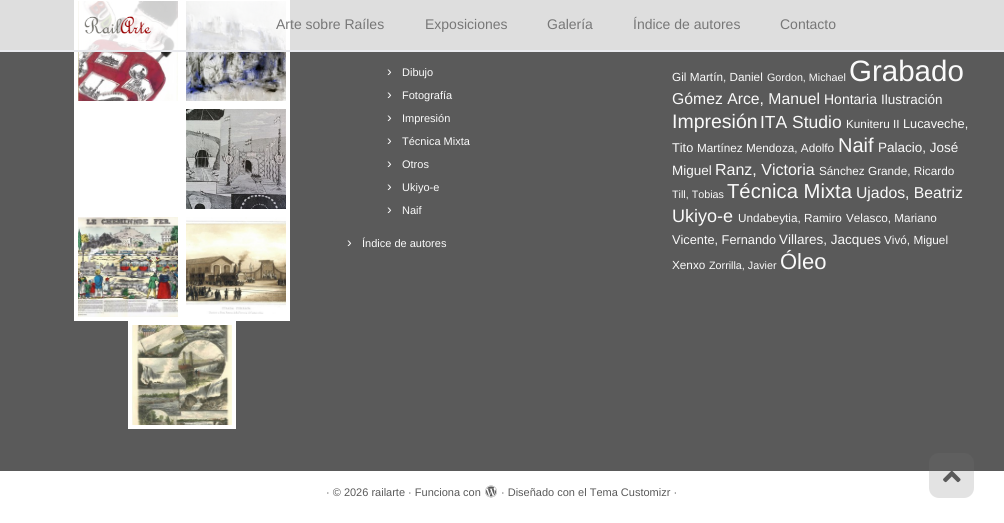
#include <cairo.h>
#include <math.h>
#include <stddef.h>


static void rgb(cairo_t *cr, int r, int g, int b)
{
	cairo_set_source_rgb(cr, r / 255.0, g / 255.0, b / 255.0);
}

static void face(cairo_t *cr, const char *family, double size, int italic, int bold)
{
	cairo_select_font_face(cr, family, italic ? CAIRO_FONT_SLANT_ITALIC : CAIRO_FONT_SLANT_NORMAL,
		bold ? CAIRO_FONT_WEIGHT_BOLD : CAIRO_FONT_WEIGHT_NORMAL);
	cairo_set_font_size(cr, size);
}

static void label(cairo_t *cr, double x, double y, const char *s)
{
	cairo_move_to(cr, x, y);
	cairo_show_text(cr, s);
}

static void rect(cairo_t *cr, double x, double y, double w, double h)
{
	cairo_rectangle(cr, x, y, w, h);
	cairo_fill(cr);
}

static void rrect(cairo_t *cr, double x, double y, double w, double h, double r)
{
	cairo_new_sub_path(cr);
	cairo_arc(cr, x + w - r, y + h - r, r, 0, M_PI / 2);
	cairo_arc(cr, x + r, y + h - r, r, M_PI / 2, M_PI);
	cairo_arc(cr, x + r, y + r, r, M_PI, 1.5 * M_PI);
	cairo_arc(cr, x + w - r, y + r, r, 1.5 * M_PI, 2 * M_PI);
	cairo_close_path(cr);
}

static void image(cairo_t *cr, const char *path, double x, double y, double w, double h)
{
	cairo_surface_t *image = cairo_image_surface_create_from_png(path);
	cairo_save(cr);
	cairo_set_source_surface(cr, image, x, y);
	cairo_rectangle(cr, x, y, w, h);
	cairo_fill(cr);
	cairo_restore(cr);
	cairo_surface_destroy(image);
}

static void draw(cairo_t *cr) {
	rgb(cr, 90, 90, 90);
	cairo_paint(cr);
	rgb(cr, 255, 255, 255);
	rect(cr, 74, 0, 216, 105);
	image(cr, "image1.png", 78, 1, 100, 100);
	image(cr, "image2.png", 186, 1, 100, 100);
	cairo_set_source_rgba(cr, 1, 1, 1, 0.8);
	rect(cr, 0, 0, 1004, 50);
	rgb(cr, 233, 234, 238);
	rect(cr, 0, 50, 1004, 2);
	image(cr, "image0.png", 84, 16, 67, 18);
	face(cr, "Liberation Sans", 14, 0, 0);
	rgb(cr, 119, 119, 119);
	label(cr, 276, 29, "Arte sobre Raíles");
	label(cr, 425, 29, "Exposiciones");
	label(cr, 547, 29, "Galería");
	label(cr, 633, 29, "Índice de autores");
	label(cr, 780, 29, "Contacto");
	rgb(cr, 255, 255, 255);
	rect(cr, 74, 105, 216, 108);
	image(cr, "image3.png", 186, 109, 100, 100);
	rect(cr, 74, 213, 216, 108);
	image(cr, "image4.png", 78, 217, 100, 100);
	image(cr, "image5.png", 186, 217, 100, 97);
	rect(cr, 128, 321, 108, 108);
	image(cr, "image6.png", 132, 325, 100, 100);
	rgb(cr, 250, 250, 250);
	label(cr, 387, 76, "›");
	face(cr, "Liberation Sans", 11, 0, 0);
	label(cr, 402, 76, "Dibujo");
	face(cr, "Liberation Sans", 14, 0, 0);
	label(cr, 387, 99, "›");
	face(cr, "Liberation Sans", 11, 0, 0);
	label(cr, 402, 99, "Fotografía");
	face(cr, "Liberation Sans", 14, 0, 0);
	label(cr, 387, 122, "›");
	face(cr, "Liberation Sans", 11, 0, 0);
	label(cr, 402, 122, "Impresión");
	face(cr, "Liberation Sans", 14, 0, 0);
	label(cr, 387, 145, "›");
	face(cr, "Liberation Sans", 11, 0, 0);
	label(cr, 402, 145, "Técnica Mixta");
	face(cr, "Liberation Sans", 14, 0, 0);
	label(cr, 387, 168, "›");
	face(cr, "Liberation Sans", 11, 0, 0);
	label(cr, 402, 168, "Otros");
	face(cr, "Liberation Sans", 14, 0, 0);
	label(cr, 387, 191, "›");
	face(cr, "Liberation Sans", 11, 0, 0);
	label(cr, 402, 191, "Ukiyo-e");
	face(cr, "Liberation Sans", 14, 0, 0);
	label(cr, 387, 214, "›");
	face(cr, "Liberation Sans", 11, 0, 0);
	label(cr, 402, 214, "Naif");
	face(cr, "Liberation Sans", 14, 0, 0);
	label(cr, 347, 247, "›");
	face(cr, "Liberation Sans", 11, 0, 0);
	label(cr, 362, 247, "Índice de autores");
	face(cr, "Liberation Sans", 11.75, 0, 0);
	label(cr, 672, 81, "Gil Martín, Daniel");
	face(cr, "Liberation Sans", 10.75, 0, 0);
	label(cr, 767, 81, "Gordon, Michael");
	face(cr, "Liberation Sans", 29.5, 0, 0);
	label(cr, 849, 81, "Grabado");
	face(cr, "Liberation Sans", 15.75, 0, 0);
	label(cr, 672, 104, "Gómez Arce, Manuel");
	face(cr, "Liberation Sans", 14, 0, 0);
	label(cr, 824, 104, "Hontaria");
	face(cr, "Liberation Sans", 13.5, 0, 0);
	label(cr, 881, 104, "Ilustración");
	face(cr, "Liberation Sans", 19.5, 0, 0);
	label(cr, 672, 128, "Impresión");
	face(cr, "Liberation Sans", 17.5, 0, 0);
	label(cr, 760, 128, "ITA Studio");
	face(cr, "Liberation Sans", 11.75, 0, 0);
	label(cr, 846, 128, "Kuniteru II");
	face(cr, "Liberation Sans", 12.75, 0, 0);
	label(cr, 903, 128, "Lucaveche,");
	label(cr, 672, 152, "Tito");
	face(cr, "Liberation Sans", 11.75, 0, 0);
	label(cr, 697, 152, "Martínez Mendoza, Adolfo");
	face(cr, "Liberation Sans", 20, 0, 0);
	label(cr, 838, 152, "Naif");
	face(cr, "Liberation Sans", 13.5, 0, 0);
	label(cr, 878, 152, "Palacio, José");
	label(cr, 672, 175, "Miguel");
	face(cr, "Liberation Sans", 16, 0, 0);
	label(cr, 715, 175, "Ranz, Victoria");
	face(cr, "Liberation Sans", 11.75, 0, 0);
	label(cr, 819, 175, "Sánchez Grande, Ricardo");
	face(cr, "Liberation Sans", 10.75, 0, 0);
	label(cr, 672, 198, "Till, Tobias");
	face(cr, "Liberation Sans", 20.25, 0, 0);
	label(cr, 727, 198, "Técnica Mixta");
	face(cr, "Liberation Sans", 15.75, 0, 0);
	label(cr, 856, 198, "Ujados, Beatriz");
	face(cr, "Liberation Sans", 18, 0, 0);
	label(cr, 672, 222, "Ukiyo-e");
	face(cr, "Liberation Sans", 11.75, 0, 0);
	label(cr, 738, 222, "Undabeytia, Ramiro");
	label(cr, 846, 222, "Velasco, Mariano");
	face(cr, "Liberation Sans", 12.75, 0, 0);
	label(cr, 672, 244, "Vicente, Fernando");
	face(cr, "Liberation Sans", 13.5, 0, 0);
	label(cr, 779, 244, "Villares, Jacques");
	face(cr, "Liberation Sans", 11.75, 0, 0);
	label(cr, 884, 244, "Vivó, Miguel");
	label(cr, 672, 269, "Xenxo");
	face(cr, "Liberation Sans", 10.75, 0, 0);
	label(cr, 709, 269, "Zorrilla, Javier");
	face(cr, "Liberation Sans", 22, 0, 0);
	label(cr, 780, 269, "Óleo");
	rgb(cr, 255, 255, 255);
	rect(cr, 0, 471, 1004, 52);
	face(cr, "Liberation Sans", 11, 0, 0);
	rgb(cr, 90, 90, 90);
	label(cr, 326, 496, "· © 2026 railarte · Funciona con");
	image(cr, "image7.png", 485, 485, 12, 13);
	label(cr, 501, 496, "· Diseñado con el Tema Customizr ·");
	cairo_set_source_rgba(cr, 0.467, 0.467, 0.467, 0.2);
	rrect(cr, 929, 453, 45, 45, 10);
	cairo_fill(cr);
	image(cr, "image8.png", 943, 471, 18, 12);
}

int main(void) {
	cairo_surface_t *surface = cairo_image_surface_create(CAIRO_FORMAT_RGB24, 1004, 523);
	cairo_t *cr = cairo_create(surface);
	cairo_font_options_t *options = cairo_font_options_create();
	cairo_font_options_set_hint_metrics(options, CAIRO_HINT_METRICS_OFF);
	cairo_font_options_set_hint_style(options, CAIRO_HINT_STYLE_NONE);
	cairo_set_font_options(cr, options);
	cairo_set_miter_limit(cr, 4);
	draw(cr);
	cairo_surface_write_to_png(surface, "render.png");
	cairo_font_options_destroy(options);
	cairo_destroy(cr);
	cairo_surface_destroy(surface);
	return 0;
}
